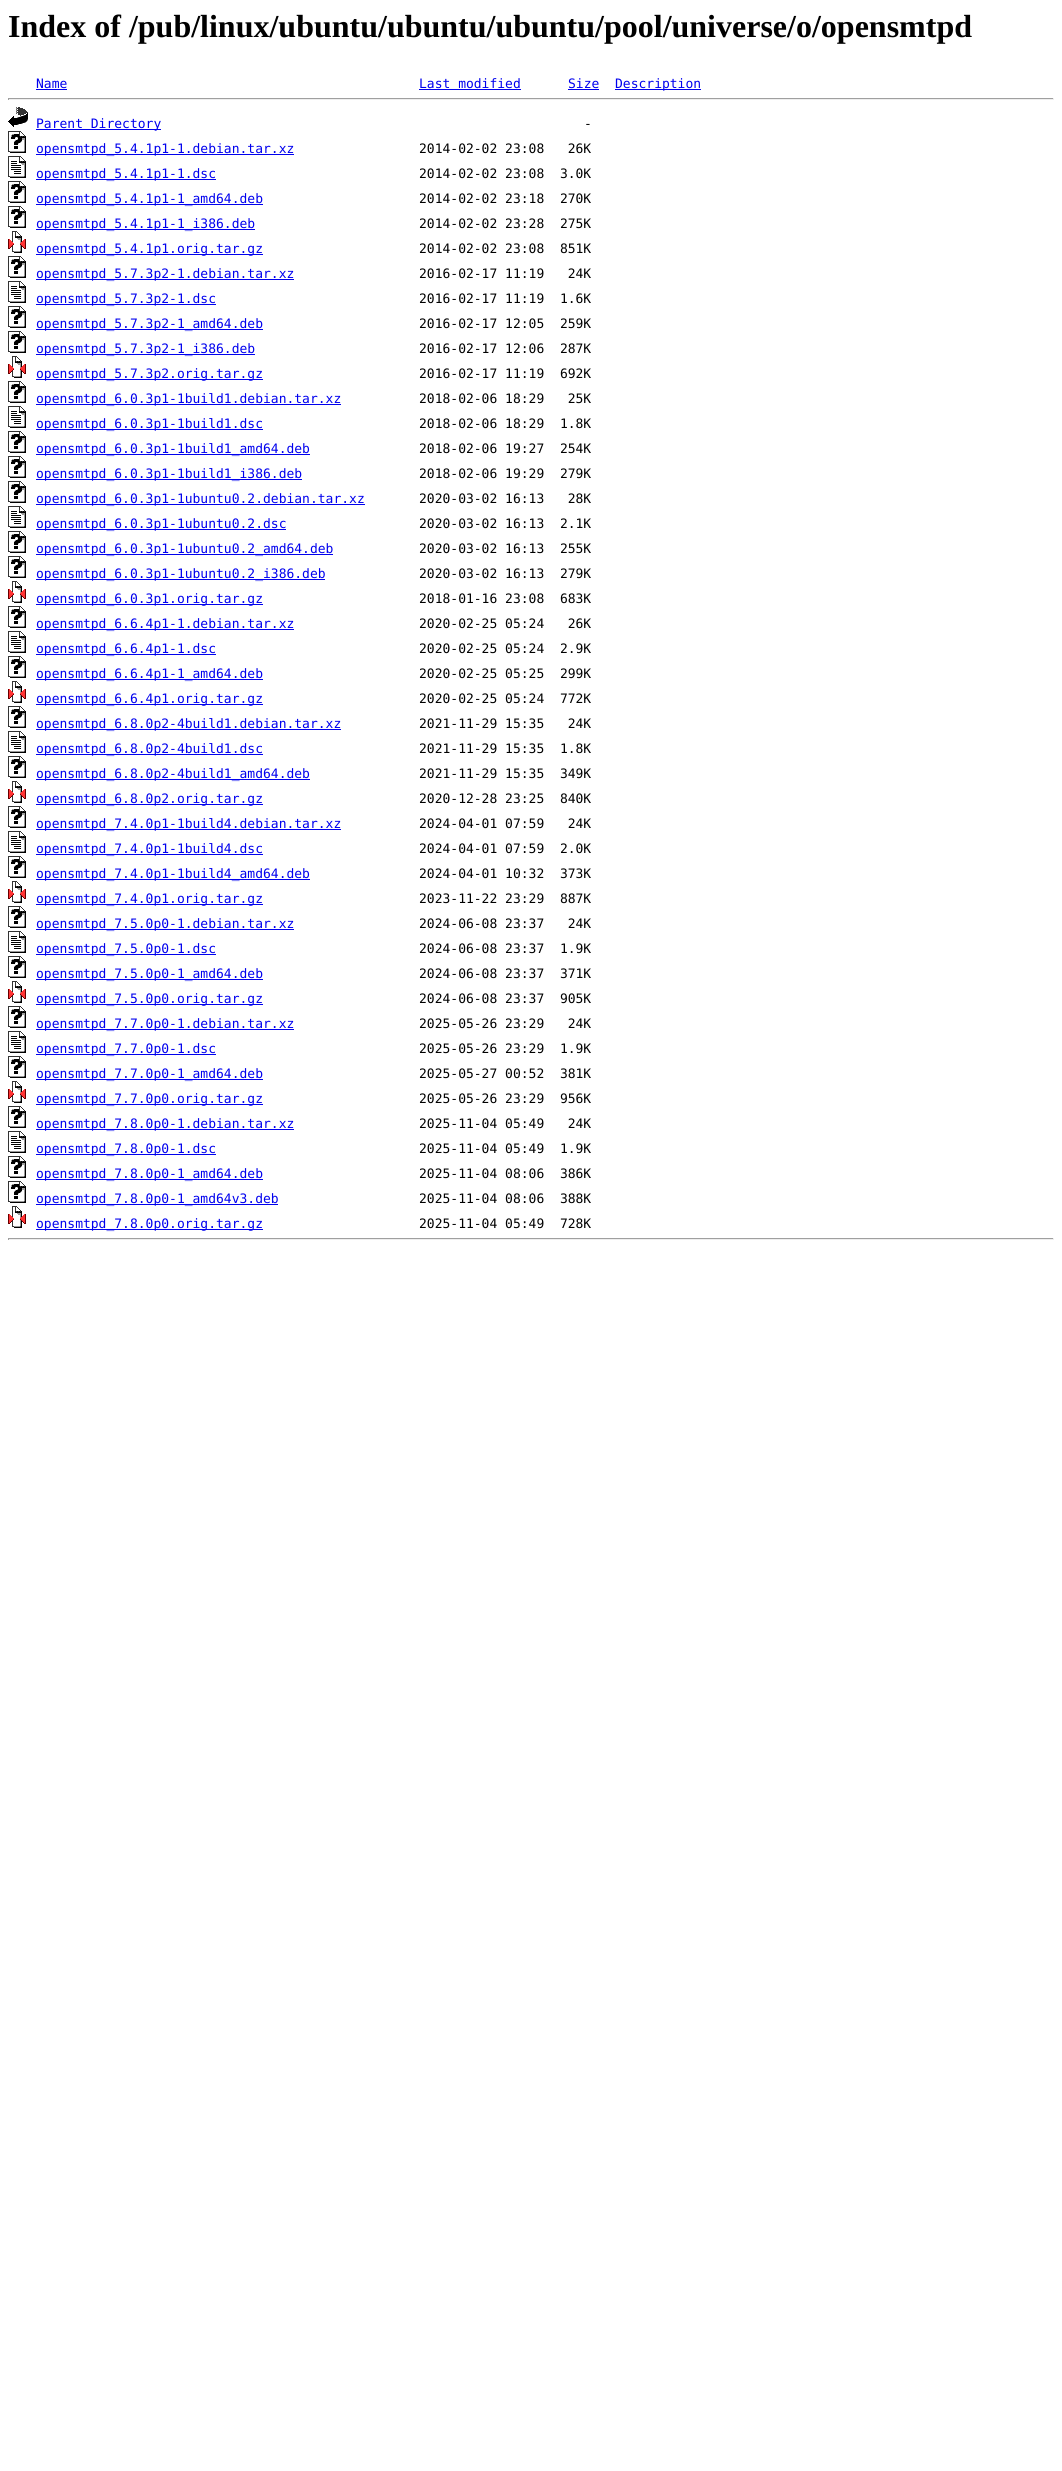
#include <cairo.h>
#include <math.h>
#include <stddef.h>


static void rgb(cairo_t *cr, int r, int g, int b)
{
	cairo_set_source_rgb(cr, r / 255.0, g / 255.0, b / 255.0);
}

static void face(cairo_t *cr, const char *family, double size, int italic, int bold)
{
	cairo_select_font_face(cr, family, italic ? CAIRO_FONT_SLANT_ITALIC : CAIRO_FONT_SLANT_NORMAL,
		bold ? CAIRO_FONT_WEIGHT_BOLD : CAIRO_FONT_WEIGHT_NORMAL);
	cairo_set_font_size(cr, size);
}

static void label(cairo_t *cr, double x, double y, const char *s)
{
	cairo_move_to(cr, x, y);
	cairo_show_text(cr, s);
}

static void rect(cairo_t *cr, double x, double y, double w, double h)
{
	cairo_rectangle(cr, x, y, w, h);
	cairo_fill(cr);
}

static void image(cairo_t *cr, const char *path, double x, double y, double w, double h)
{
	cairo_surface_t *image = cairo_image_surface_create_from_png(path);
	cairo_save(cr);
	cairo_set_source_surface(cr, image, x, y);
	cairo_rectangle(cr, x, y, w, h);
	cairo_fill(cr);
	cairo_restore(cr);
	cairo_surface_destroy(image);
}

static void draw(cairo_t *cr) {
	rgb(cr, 255, 255, 255);
	cairo_paint(cr);
	face(cr, "Liberation Serif", 32, 0, 1);
	rgb(cr, 0, 0, 0);
	label(cr, 8, 37, "Index of /pub/linux/ubuntu/ubuntu/ubuntu/pool/universe/o/opensmtpd");
	face(cr, "DejaVu Sans Mono", 13, 0, 0);
	rgb(cr, 0, 0, 238);
	label(cr, 36, 88, "Name");
	rect(cr, 36, 89, 31, 1);
	label(cr, 419, 88, "Last modified");
	rect(cr, 419, 89, 102, 1);
	label(cr, 568, 88, "Size");
	rect(cr, 568, 89, 31, 1);
	rect(cr, 615, 89, 86, 1);
	label(cr, 615, 88, "Description");
	rgb(cr, 159, 159, 159);
	rect(cr, 8, 98, 1046, 1);
	rgb(cr, 238, 238, 238);
	rect(cr, 1053, 98, 1, 2);
	rect(cr, 8, 99, 1046, 1);
	rgb(cr, 159, 159, 159);
	rect(cr, 8, 98, 1, 2);
	image(cr, "image0.png", 8, 107, 20, 20);
	rgb(cr, 0, 0, 238);
	rect(cr, 36, 129, 125, 1);
	label(cr, 36, 128, "Parent Directory");
	rgb(cr, 0, 0, 0);
	label(cr, 584, 128, "-");
	image(cr, "image1.png", 8, 131, 18, 22);
	rgb(cr, 0, 0, 238);
	rect(cr, 36, 154, 258, 1);
	label(cr, 36, 153, "opensmtpd_5.4.1p1-1.debian.tar.xz");
	rgb(cr, 0, 0, 0);
	label(cr, 419, 153, "2014-02-02 23:08   26K");
	image(cr, "image2.png", 8, 156, 18, 22);
	rgb(cr, 0, 0, 238);
	rect(cr, 36, 179, 180, 1);
	label(cr, 36, 178, "opensmtpd_5.4.1p1-1.dsc");
	rgb(cr, 0, 0, 0);
	label(cr, 419, 178, "2014-02-02 23:08  3.0K");
	image(cr, "image1.png", 8, 181, 18, 22);
	rgb(cr, 0, 0, 238);
	rect(cr, 36, 204, 227, 1);
	label(cr, 36, 203, "opensmtpd_5.4.1p1-1_amd64.deb");
	rgb(cr, 0, 0, 0);
	label(cr, 419, 203, "2014-02-02 23:18  270K");
	image(cr, "image1.png", 8, 206, 18, 22);
	rgb(cr, 0, 0, 238);
	rect(cr, 36, 229, 219, 1);
	label(cr, 36, 228, "opensmtpd_5.4.1p1-1_i386.deb");
	rgb(cr, 0, 0, 0);
	label(cr, 419, 228, "2014-02-02 23:28  275K");
	image(cr, "image3.png", 8, 231, 18, 22);
	rgb(cr, 0, 0, 238);
	rect(cr, 36, 254, 227, 1);
	label(cr, 36, 253, "opensmtpd_5.4.1p1.orig.tar.gz");
	rgb(cr, 0, 0, 0);
	label(cr, 419, 253, "2014-02-02 23:08  851K");
	image(cr, "image1.png", 8, 256, 18, 22);
	rgb(cr, 0, 0, 238);
	rect(cr, 36, 279, 258, 1);
	label(cr, 36, 278, "opensmtpd_5.7.3p2-1.debian.tar.xz");
	rgb(cr, 0, 0, 0);
	label(cr, 419, 278, "2016-02-17 11:19   24K");
	image(cr, "image2.png", 8, 281, 18, 22);
	rgb(cr, 0, 0, 238);
	rect(cr, 36, 304, 180, 1);
	label(cr, 36, 303, "opensmtpd_5.7.3p2-1.dsc");
	rgb(cr, 0, 0, 0);
	label(cr, 419, 303, "2016-02-17 11:19  1.6K");
	image(cr, "image1.png", 8, 306, 18, 22);
	rgb(cr, 0, 0, 238);
	rect(cr, 36, 329, 227, 1);
	label(cr, 36, 328, "opensmtpd_5.7.3p2-1_amd64.deb");
	rgb(cr, 0, 0, 0);
	label(cr, 419, 328, "2016-02-17 12:05  259K");
	image(cr, "image1.png", 8, 331, 18, 22);
	rgb(cr, 0, 0, 238);
	rect(cr, 36, 354, 219, 1);
	label(cr, 36, 353, "opensmtpd_5.7.3p2-1_i386.deb");
	rgb(cr, 0, 0, 0);
	label(cr, 419, 353, "2016-02-17 12:06  287K");
	image(cr, "image3.png", 8, 356, 18, 22);
	rgb(cr, 0, 0, 238);
	rect(cr, 36, 379, 227, 1);
	label(cr, 36, 378, "opensmtpd_5.7.3p2.orig.tar.gz");
	rgb(cr, 0, 0, 0);
	label(cr, 419, 378, "2016-02-17 11:19  692K");
	image(cr, "image1.png", 8, 381, 18, 22);
	rgb(cr, 0, 0, 238);
	rect(cr, 36, 404, 305, 1);
	label(cr, 36, 403, "opensmtpd_6.0.3p1-1build1.debian.tar.xz");
	rgb(cr, 0, 0, 0);
	label(cr, 419, 403, "2018-02-06 18:29   25K");
	image(cr, "image2.png", 8, 406, 18, 22);
	rgb(cr, 0, 0, 238);
	rect(cr, 36, 429, 227, 1);
	label(cr, 36, 428, "opensmtpd_6.0.3p1-1build1.dsc");
	rgb(cr, 0, 0, 0);
	label(cr, 419, 428, "2018-02-06 18:29  1.8K");
	image(cr, "image1.png", 8, 431, 18, 22);
	rgb(cr, 0, 0, 238);
	rect(cr, 36, 454, 274, 1);
	label(cr, 36, 453, "opensmtpd_6.0.3p1-1build1_amd64.deb");
	rgb(cr, 0, 0, 0);
	label(cr, 419, 453, "2018-02-06 19:27  254K");
	image(cr, "image1.png", 8, 456, 18, 22);
	rgb(cr, 0, 0, 238);
	rect(cr, 36, 479, 266, 1);
	label(cr, 36, 478, "opensmtpd_6.0.3p1-1build1_i386.deb");
	rgb(cr, 0, 0, 0);
	label(cr, 419, 478, "2018-02-06 19:29  279K");
	image(cr, "image1.png", 8, 481, 18, 22);
	rgb(cr, 0, 0, 238);
	rect(cr, 36, 504, 329, 1);
	label(cr, 36, 503, "opensmtpd_6.0.3p1-1ubuntu0.2.debian.tar.xz");
	rgb(cr, 0, 0, 0);
	label(cr, 419, 503, "2020-03-02 16:13   28K");
	image(cr, "image2.png", 8, 506, 18, 22);
	rgb(cr, 0, 0, 238);
	rect(cr, 36, 529, 250, 1);
	label(cr, 36, 528, "opensmtpd_6.0.3p1-1ubuntu0.2.dsc");
	rgb(cr, 0, 0, 0);
	label(cr, 419, 528, "2020-03-02 16:13  2.1K");
	image(cr, "image1.png", 8, 531, 18, 22);
	rgb(cr, 0, 0, 238);
	rect(cr, 36, 554, 297, 1);
	label(cr, 36, 553, "opensmtpd_6.0.3p1-1ubuntu0.2_amd64.deb");
	rgb(cr, 0, 0, 0);
	label(cr, 419, 553, "2020-03-02 16:13  255K");
	image(cr, "image1.png", 8, 556, 18, 22);
	rgb(cr, 0, 0, 238);
	rect(cr, 36, 579, 289, 1);
	label(cr, 36, 578, "opensmtpd_6.0.3p1-1ubuntu0.2_i386.deb");
	rgb(cr, 0, 0, 0);
	label(cr, 419, 578, "2020-03-02 16:13  279K");
	image(cr, "image3.png", 8, 581, 18, 22);
	rgb(cr, 0, 0, 238);
	rect(cr, 36, 604, 227, 1);
	label(cr, 36, 603, "opensmtpd_6.0.3p1.orig.tar.gz");
	rgb(cr, 0, 0, 0);
	label(cr, 419, 603, "2018-01-16 23:08  683K");
	image(cr, "image1.png", 8, 606, 18, 22);
	rgb(cr, 0, 0, 238);
	rect(cr, 36, 629, 258, 1);
	label(cr, 36, 628, "opensmtpd_6.6.4p1-1.debian.tar.xz");
	rgb(cr, 0, 0, 0);
	label(cr, 419, 628, "2020-02-25 05:24   26K");
	image(cr, "image2.png", 8, 631, 18, 22);
	rgb(cr, 0, 0, 238);
	rect(cr, 36, 654, 180, 1);
	label(cr, 36, 653, "opensmtpd_6.6.4p1-1.dsc");
	rgb(cr, 0, 0, 0);
	label(cr, 419, 653, "2020-02-25 05:24  2.9K");
	image(cr, "image1.png", 8, 656, 18, 22);
	rgb(cr, 0, 0, 238);
	rect(cr, 36, 679, 227, 1);
	label(cr, 36, 678, "opensmtpd_6.6.4p1-1_amd64.deb");
	rgb(cr, 0, 0, 0);
	label(cr, 419, 678, "2020-02-25 05:25  299K");
	image(cr, "image3.png", 8, 681, 18, 22);
	rgb(cr, 0, 0, 238);
	rect(cr, 36, 704, 227, 1);
	label(cr, 36, 703, "opensmtpd_6.6.4p1.orig.tar.gz");
	rgb(cr, 0, 0, 0);
	label(cr, 419, 703, "2020-02-25 05:24  772K");
	image(cr, "image1.png", 8, 706, 18, 22);
	rgb(cr, 0, 0, 238);
	rect(cr, 36, 729, 305, 1);
	label(cr, 36, 728, "opensmtpd_6.8.0p2-4build1.debian.tar.xz");
	rgb(cr, 0, 0, 0);
	label(cr, 419, 728, "2021-11-29 15:35   24K");
	image(cr, "image2.png", 8, 731, 18, 22);
	rgb(cr, 0, 0, 238);
	rect(cr, 36, 754, 227, 1);
	label(cr, 36, 753, "opensmtpd_6.8.0p2-4build1.dsc");
	rgb(cr, 0, 0, 0);
	label(cr, 419, 753, "2021-11-29 15:35  1.8K");
	image(cr, "image1.png", 8, 756, 18, 22);
	rgb(cr, 0, 0, 238);
	rect(cr, 36, 779, 274, 1);
	label(cr, 36, 778, "opensmtpd_6.8.0p2-4build1_amd64.deb");
	rgb(cr, 0, 0, 0);
	label(cr, 419, 778, "2021-11-29 15:35  349K");
	image(cr, "image3.png", 8, 781, 18, 22);
	rgb(cr, 0, 0, 238);
	rect(cr, 36, 804, 227, 1);
	label(cr, 36, 803, "opensmtpd_6.8.0p2.orig.tar.gz");
	rgb(cr, 0, 0, 0);
	label(cr, 419, 803, "2020-12-28 23:25  840K");
	image(cr, "image1.png", 8, 806, 18, 22);
	rgb(cr, 0, 0, 238);
	rect(cr, 36, 829, 305, 1);
	label(cr, 36, 828, "opensmtpd_7.4.0p1-1build4.debian.tar.xz");
	rgb(cr, 0, 0, 0);
	label(cr, 419, 828, "2024-04-01 07:59   24K");
	image(cr, "image2.png", 8, 831, 18, 22);
	rgb(cr, 0, 0, 238);
	rect(cr, 36, 854, 227, 1);
	label(cr, 36, 853, "opensmtpd_7.4.0p1-1build4.dsc");
	rgb(cr, 0, 0, 0);
	label(cr, 419, 853, "2024-04-01 07:59  2.0K");
	image(cr, "image1.png", 8, 856, 18, 22);
	rgb(cr, 0, 0, 238);
	rect(cr, 36, 879, 274, 1);
	label(cr, 36, 878, "opensmtpd_7.4.0p1-1build4_amd64.deb");
	rgb(cr, 0, 0, 0);
	label(cr, 419, 878, "2024-04-01 10:32  373K");
	image(cr, "image3.png", 8, 881, 18, 22);
	rgb(cr, 0, 0, 238);
	rect(cr, 36, 904, 227, 1);
	label(cr, 36, 903, "opensmtpd_7.4.0p1.orig.tar.gz");
	rgb(cr, 0, 0, 0);
	label(cr, 419, 903, "2023-11-22 23:29  887K");
	image(cr, "image1.png", 8, 906, 18, 22);
	rgb(cr, 0, 0, 238);
	rect(cr, 36, 929, 258, 1);
	label(cr, 36, 928, "opensmtpd_7.5.0p0-1.debian.tar.xz");
	rgb(cr, 0, 0, 0);
	label(cr, 419, 928, "2024-06-08 23:37   24K");
	image(cr, "image2.png", 8, 931, 18, 22);
	rgb(cr, 0, 0, 238);
	rect(cr, 36, 954, 180, 1);
	label(cr, 36, 953, "opensmtpd_7.5.0p0-1.dsc");
	rgb(cr, 0, 0, 0);
	label(cr, 419, 953, "2024-06-08 23:37  1.9K");
	image(cr, "image1.png", 8, 956, 18, 22);
	rgb(cr, 0, 0, 238);
	rect(cr, 36, 979, 227, 1);
	label(cr, 36, 978, "opensmtpd_7.5.0p0-1_amd64.deb");
	rgb(cr, 0, 0, 0);
	label(cr, 419, 978, "2024-06-08 23:37  371K");
	image(cr, "image3.png", 8, 981, 18, 22);
	rgb(cr, 0, 0, 238);
	rect(cr, 36, 1004, 227, 1);
	label(cr, 36, 1003, "opensmtpd_7.5.0p0.orig.tar.gz");
	rgb(cr, 0, 0, 0);
	label(cr, 419, 1003, "2024-06-08 23:37  905K");
	image(cr, "image1.png", 8, 1006, 18, 22);
	rgb(cr, 0, 0, 238);
	rect(cr, 36, 1029, 258, 1);
	label(cr, 36, 1028, "opensmtpd_7.7.0p0-1.debian.tar.xz");
	rgb(cr, 0, 0, 0);
	label(cr, 419, 1028, "2025-05-26 23:29   24K");
	image(cr, "image2.png", 8, 1031, 18, 22);
	rgb(cr, 0, 0, 238);
	rect(cr, 36, 1054, 180, 1);
	label(cr, 36, 1053, "opensmtpd_7.7.0p0-1.dsc");
	rgb(cr, 0, 0, 0);
	label(cr, 419, 1053, "2025-05-26 23:29  1.9K");
	image(cr, "image1.png", 8, 1056, 18, 22);
	rgb(cr, 0, 0, 238);
	rect(cr, 36, 1079, 227, 1);
	label(cr, 36, 1078, "opensmtpd_7.7.0p0-1_amd64.deb");
	rgb(cr, 0, 0, 0);
	label(cr, 419, 1078, "2025-05-27 00:52  381K");
	image(cr, "image3.png", 8, 1081, 18, 22);
	rgb(cr, 0, 0, 238);
	rect(cr, 36, 1104, 227, 1);
	label(cr, 36, 1103, "opensmtpd_7.7.0p0.orig.tar.gz");
	rgb(cr, 0, 0, 0);
	label(cr, 419, 1103, "2025-05-26 23:29  956K");
	image(cr, "image1.png", 8, 1106, 18, 22);
	rgb(cr, 0, 0, 238);
	rect(cr, 36, 1129, 258, 1);
	label(cr, 36, 1128, "opensmtpd_7.8.0p0-1.debian.tar.xz");
	rgb(cr, 0, 0, 0);
	label(cr, 419, 1128, "2025-11-04 05:49   24K");
	image(cr, "image2.png", 8, 1131, 18, 22);
	rgb(cr, 0, 0, 238);
	rect(cr, 36, 1154, 180, 1);
	label(cr, 36, 1153, "opensmtpd_7.8.0p0-1.dsc");
	rgb(cr, 0, 0, 0);
	label(cr, 419, 1153, "2025-11-04 05:49  1.9K");
	image(cr, "image1.png", 8, 1156, 18, 22);
	rgb(cr, 0, 0, 238);
	rect(cr, 36, 1179, 227, 1);
	label(cr, 36, 1178, "opensmtpd_7.8.0p0-1_amd64.deb");
	rgb(cr, 0, 0, 0);
	label(cr, 419, 1178, "2025-11-04 08:06  386K");
	image(cr, "image1.png", 8, 1181, 18, 22);
	rgb(cr, 0, 0, 238);
	rect(cr, 36, 1204, 242, 1);
	label(cr, 36, 1203, "opensmtpd_7.8.0p0-1_amd64v3.deb");
	rgb(cr, 0, 0, 0);
	label(cr, 419, 1203, "2025-11-04 08:06  388K");
	image(cr, "image3.png", 8, 1206, 18, 22);
	rgb(cr, 0, 0, 238);
	rect(cr, 36, 1229, 227, 1);
	label(cr, 36, 1228, "opensmtpd_7.8.0p0.orig.tar.gz");
	rgb(cr, 0, 0, 0);
	label(cr, 419, 1228, "2025-11-04 05:49  728K");
	rgb(cr, 159, 159, 159);
	rect(cr, 8, 1238, 1046, 1);
	rgb(cr, 238, 238, 238);
	rect(cr, 1053, 1238, 1, 2);
	rect(cr, 8, 1239, 1046, 1);
	rgb(cr, 159, 159, 159);
	rect(cr, 8, 1238, 1, 2);
}

int main(void) {
	cairo_surface_t *surface = cairo_image_surface_create(CAIRO_FORMAT_RGB24, 1062, 2471);
	cairo_t *cr = cairo_create(surface);
	cairo_font_options_t *options = cairo_font_options_create();
	cairo_font_options_set_hint_metrics(options, CAIRO_HINT_METRICS_OFF);
	cairo_font_options_set_hint_style(options, CAIRO_HINT_STYLE_NONE);
	cairo_set_font_options(cr, options);
	cairo_set_miter_limit(cr, 4);
	draw(cr);
	cairo_surface_write_to_png(surface, "render.png");
	cairo_font_options_destroy(options);
	cairo_destroy(cr);
	cairo_surface_destroy(surface);
	return 0;
}
